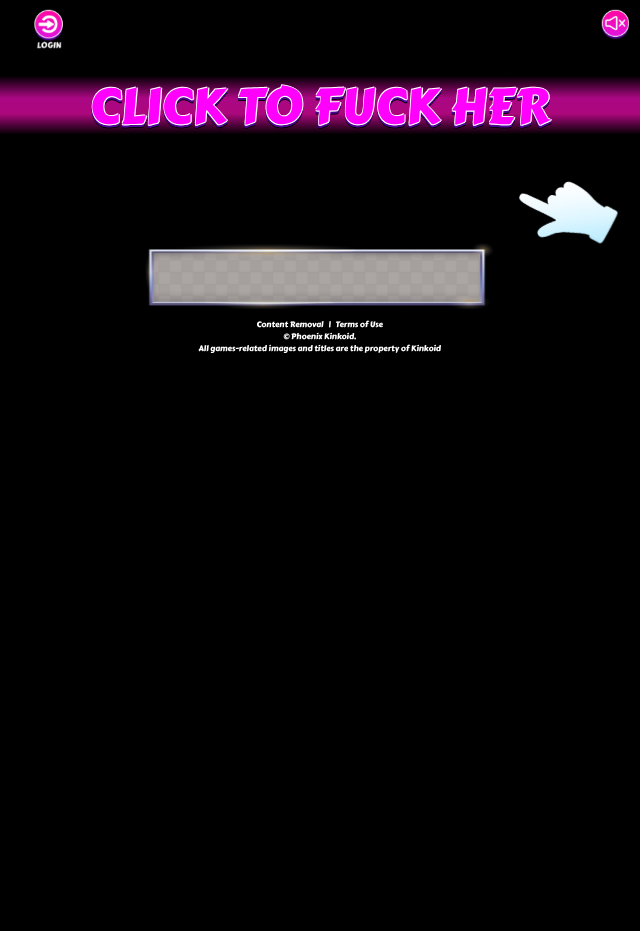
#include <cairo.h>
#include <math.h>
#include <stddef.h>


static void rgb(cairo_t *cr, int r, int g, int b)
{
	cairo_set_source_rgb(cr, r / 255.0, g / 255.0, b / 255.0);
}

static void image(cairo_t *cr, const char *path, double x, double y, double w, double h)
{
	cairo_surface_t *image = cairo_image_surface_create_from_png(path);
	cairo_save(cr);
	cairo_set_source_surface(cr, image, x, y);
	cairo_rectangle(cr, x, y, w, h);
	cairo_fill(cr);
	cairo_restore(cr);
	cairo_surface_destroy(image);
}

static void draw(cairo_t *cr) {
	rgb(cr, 255, 255, 255);
	cairo_paint(cr);
	image(cr, "image0.png", 0, 0, 640, 931);
}

int main(void) {
	cairo_surface_t *surface = cairo_image_surface_create(CAIRO_FORMAT_RGB24, 640, 931);
	cairo_t *cr = cairo_create(surface);
	cairo_font_options_t *options = cairo_font_options_create();
	cairo_font_options_set_hint_metrics(options, CAIRO_HINT_METRICS_OFF);
	cairo_font_options_set_hint_style(options, CAIRO_HINT_STYLE_NONE);
	cairo_set_font_options(cr, options);
	cairo_set_miter_limit(cr, 4);
	draw(cr);
	cairo_surface_write_to_png(surface, "render.png");
	cairo_font_options_destroy(options);
	cairo_destroy(cr);
	cairo_surface_destroy(surface);
	return 0;
}
